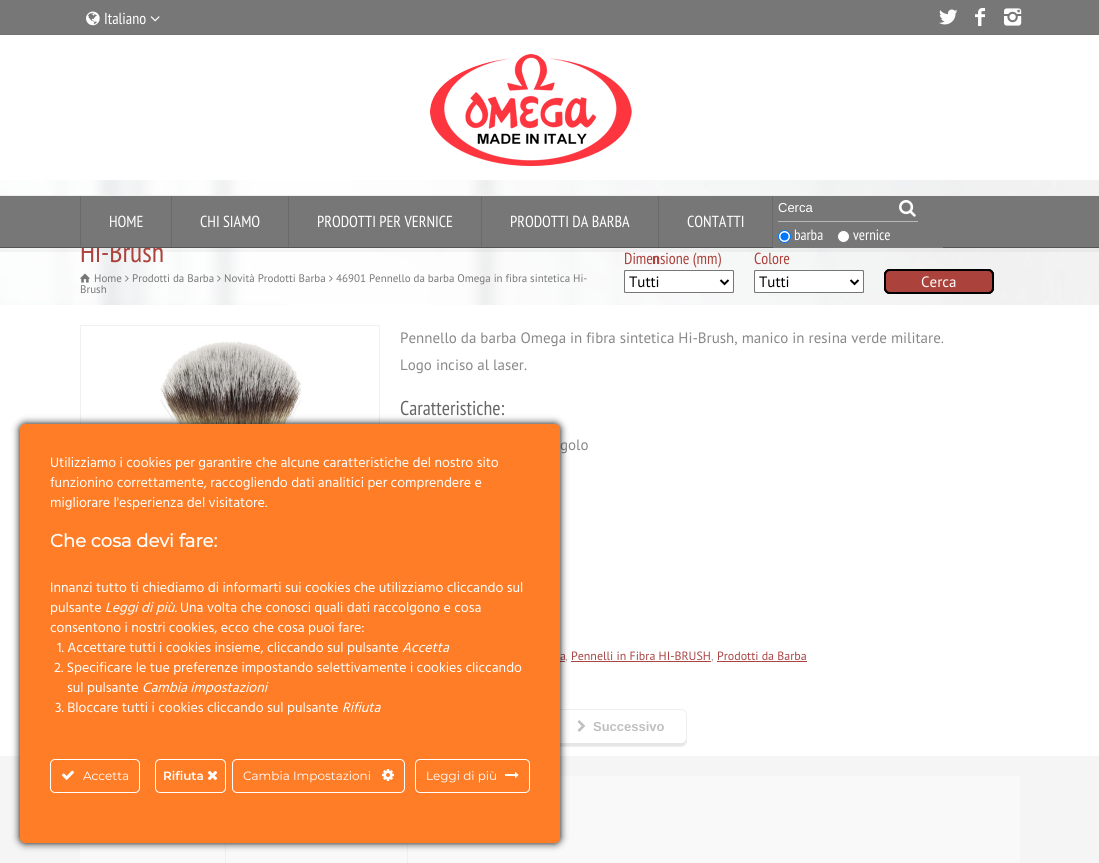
#include <cairo.h>
#include <math.h>
#include <stddef.h>


static void rgb(cairo_t *cr, int r, int g, int b)
{
	cairo_set_source_rgb(cr, r / 255.0, g / 255.0, b / 255.0);
}

static void face(cairo_t *cr, const char *family, double size, int italic, int bold)
{
	cairo_select_font_face(cr, family, italic ? CAIRO_FONT_SLANT_ITALIC : CAIRO_FONT_SLANT_NORMAL,
		bold ? CAIRO_FONT_WEIGHT_BOLD : CAIRO_FONT_WEIGHT_NORMAL);
	cairo_set_font_size(cr, size);
}

static void label(cairo_t *cr, double x, double y, const char *s)
{
	cairo_move_to(cr, x, y);
	cairo_show_text(cr, s);
}

static void rect(cairo_t *cr, double x, double y, double w, double h)
{
	cairo_rectangle(cr, x, y, w, h);
	cairo_fill(cr);
}

static void rrect(cairo_t *cr, double x, double y, double w, double h, double r)
{
	cairo_new_sub_path(cr);
	cairo_arc(cr, x + w - r, y + h - r, r, 0, M_PI / 2);
	cairo_arc(cr, x + r, y + h - r, r, M_PI / 2, M_PI);
	cairo_arc(cr, x + r, y + r, r, M_PI, 1.5 * M_PI);
	cairo_arc(cr, x + w - r, y + r, r, 1.5 * M_PI, 2 * M_PI);
	cairo_close_path(cr);
}

static void soft_shadow(cairo_t *cr, double x, double y, double w, double h, double r, double blur, double alpha)
{
	cairo_push_group_with_content(cr, CAIRO_CONTENT_ALPHA);
	cairo_set_operator(cr, CAIRO_OPERATOR_SOURCE);
	for (int i = 15; i >= -15 && fmin(w, h) + blur * i / 3 > 0; i -= 2) {
		double e = blur * i / 6;
		cairo_set_source_rgba(cr, 0, 0, 0, alpha * erfc((i - 1) / 8.5) / 2);
		rrect(cr, x - e, y - e, w + 2 * e, h + 2 * e, fmax(0, fmin(r + e + blur * .6, fmin(w, h) / 2 + e)));
		cairo_fill(cr);
	}
	cairo_pattern_t *soft = cairo_pop_group(cr);
	cairo_mask(cr, soft);
	cairo_pattern_destroy(soft);
}

static void image(cairo_t *cr, const char *path, double x, double y, double w, double h)
{
	cairo_surface_t *image = cairo_image_surface_create_from_png(path);
	cairo_save(cr);
	cairo_set_source_surface(cr, image, x, y);
	cairo_rectangle(cr, x, y, w, h);
	cairo_fill(cr);
	cairo_restore(cr);
	cairo_surface_destroy(image);
}

static void draw(cairo_t *cr) {
	rgb(cr, 255, 255, 255);
	cairo_paint(cr);
	rgb(cr, 119, 119, 119);
	rect(cr, 0, 0, 1099, 34);
	rgb(cr, 114, 114, 114);
	rect(cr, 0, 34, 1099, 1);
	image(cr, "image0.png", 86, 11, 14, 15);
	face(cr, "PT Sans Narrow", 16, 0, 0);
	rgb(cr, 255, 255, 255);
	label(cr, 104, 24, "Italiano");
	image(cr, "image1.png", 150, 16, 10, 6);
	image(cr, "image2.png", 939, 9, 19, 16);
	image(cr, "image3.png", 975, 8, 10, 18);
	image(cr, "image4.png", 1004, 8, 18, 18);
	image(cr, "image5.png", 430, 54, 202, 112);
	image(cr, "image7.png", 0, 180, 1099, 125);
	cairo_set_source_rgba(cr, 0, 0, 0, 0.04);
	rect(cr, 0, 248, 1099, 4);
	face(cr, "PT Sans Narrow", 28, 0, 0);
	rgb(cr, 172, 66, 60);
	label(cr, 80, 262, "Hi-Brush");
	rgb(cr, 119, 119, 119);
	rect(cr, 0, 196, 1099, 51);
	rgb(cr, 238, 238, 238);
	rect(cr, 0, 195, 1099, 1);
	rgb(cr, 85, 85, 85);
	rect(cr, 0, 247, 1099, 1);
	rgb(cr, 106, 106, 106);
	rect(cr, 772, 196, 1, 51);
	rect(cr, 171, 196, 1, 51);
	rect(cr, 80, 196, 1, 51);
	face(cr, "PT Sans Narrow", 16, 0, 0);
	rgb(cr, 255, 255, 255);
	label(cr, 109, 227, "HOME");
	rgb(cr, 106, 106, 106);
	rect(cr, 288, 196, 1, 51);
	rgb(cr, 255, 255, 255);
	label(cr, 200, 227, "CHI SIAMO");
	rgb(cr, 106, 106, 106);
	rect(cr, 481, 196, 1, 51);
	rgb(cr, 255, 255, 255);
	label(cr, 317, 227, "PRODOTTI PER VERNICE");
	rgb(cr, 106, 106, 106);
	rect(cr, 658, 196, 1, 51);
	rgb(cr, 255, 255, 255);
	label(cr, 510, 227, "PRODOTTI DA BARBA");
	label(cr, 687, 227, "CONTATTI");
	rgb(cr, 119, 119, 119);
	rect(cr, 773, 247, 170, 1);
	rgb(cr, 184, 184, 184);
	rect(cr, 778, 221, 140, 1);
	face(cr, "Liberation Sans", 13, 0, 0);
	rgb(cr, 255, 255, 255);
	label(cr, 778, 212, "Cerca");
	image(cr, "image6.png", 899, 200, 17, 17);
	cairo_arc(cr, 784.5, 236.5, 6, 0, 2 * M_PI);
	cairo_fill_preserve(cr);
	rgb(cr, 0, 117, 255);
	cairo_set_line_width(cr, 1);
	cairo_stroke(cr);
	cairo_arc(cr, 784.5, 236.5, 4, 0, 2 * M_PI);
	cairo_fill(cr);
	face(cr, "PT Sans Narrow", 15, 0, 0);
	rgb(cr, 255, 255, 255);
	label(cr, 794, 240, "barba");
	cairo_new_path(cr);
	cairo_arc(cr, 843.5, 236.5, 6, 0, 2 * M_PI);
	cairo_fill_preserve(cr);
	rgb(cr, 118, 118, 118);
	cairo_stroke(cr);
	rgb(cr, 255, 255, 255);
	label(cr, 853, 240, "vernice");
	face(cr, "PT Sans Narrow", 16, 0, 0);
	rgb(cr, 172, 66, 60);
	label(cr, 624, 264, "Dimensione (mm)");
	rrect(cr, 624.5, 270.5, 109, 22, 1.5);
	rgb(cr, 118, 118, 118);
	cairo_stroke(cr);
	rgb(cr, 172, 66, 60);
	label(cr, 754, 264, "Colore");
	rrect(cr, 754.5, 270.5, 109, 22, 1.5);
	rgb(cr, 118, 118, 118);
	cairo_stroke(cr);
	rrect(cr, 885, 270, 108, 23, 5);
	rgb(cr, 0, 0, 0);
	cairo_set_line_width(cr, 2);
	cairo_stroke(cr);
	rgb(cr, 172, 66, 60);
	label(cr, 652, 264, "n");
	rrect(cr, 624.5, 270.5, 109, 22, 1.5);
	rgb(cr, 118, 118, 118);
	cairo_set_line_width(cr, 1);
	cairo_stroke(cr);
	rrect(cr, 754.5, 270.5, 109, 22, 1.5);
	cairo_stroke(cr);
	rrect(cr, 885, 270, 108, 23, 5);
	rgb(cr, 0, 0, 0);
	cairo_set_line_width(cr, 2);
	cairo_stroke(cr);
	image(cr, "image8.png", 80, 273, 10, 10);
	face(cr, "PT Sans", 11, 0, 0);
	rgb(cr, 119, 119, 119);
	label(cr, 94, 282, "Home");
	image(cr, "image9.png", 125, 275, 4, 7);
	label(cr, 132, 282, "Prodotti da Barba");
	image(cr, "image10.png", 217, 275, 4, 7);
	label(cr, 224, 282, "Novità Prodotti Barba");
	image(cr, "image11.png", 329, 275, 4, 7);
	label(cr, 336, 282, "46901 Pennello da barba Omega in fibra sintetica Hi-");
	label(cr, 80, 293, "Brush");
	rgb(cr, 255, 255, 255);
	rrect(cr, 624.5, 270.5, 109, 22, 1.5);
	cairo_fill_preserve(cr);
	rgb(cr, 118, 118, 118);
	cairo_set_line_width(cr, 1);
	cairo_stroke(cr);
	cairo_new_path(cr);
	cairo_move_to(cr, 720.5, 280);
	cairo_line_to(cr, 724.5, 284);
	cairo_line_to(cr, 728.5, 280);
	rgb(cr, 0, 0, 0);
	cairo_set_line_width(cr, 2);
	cairo_stroke(cr);
	face(cr, "PT Sans", 15, 0, 0);
	label(cr, 629, 287, "Tutti");
	rgb(cr, 255, 255, 255);
	rrect(cr, 754.5, 270.5, 109, 22, 1.5);
	cairo_fill_preserve(cr);
	rgb(cr, 118, 118, 118);
	cairo_set_line_width(cr, 1);
	cairo_stroke(cr);
	cairo_new_path(cr);
	cairo_move_to(cr, 850.5, 280);
	cairo_line_to(cr, 854.5, 284);
	cairo_line_to(cr, 858.5, 280);
	rgb(cr, 0, 0, 0);
	cairo_set_line_width(cr, 2);
	cairo_stroke(cr);
	label(cr, 759, 287, "Tutti");
	rgb(cr, 172, 66, 60);
	rrect(cr, 885, 270, 108, 23, 5);
	cairo_fill_preserve(cr);
	rgb(cr, 0, 0, 0);
	cairo_stroke(cr);
	rgb(cr, 255, 255, 255);
	label(cr, 921, 287, "Cerca");
	cairo_rectangle(cr, 80.5, 325.5, 299, 299);
	rgb(cr, 240, 240, 240);
	cairo_set_line_width(cr, 1);
	cairo_stroke(cr);
	image(cr, "image12.png", 160, 341, 142, 83);
	rgb(cr, 136, 136, 136);
	label(cr, 400, 343, "Pennello da barba Omega in fibra sintetica Hi-Brush, manico in resina verde militare.");
	label(cr, 400, 370, "Logo inciso al laser.");
	face(cr, "PT Sans Narrow", 20, 0, 0);
	rgb(cr, 102, 102, 102);
	label(cr, 400, 415, "Caratteristiche:");
	face(cr, "PT Sans", 15, 0, 0);
	rgb(cr, 136, 136, 136);
	label(cr, 560, 450, "golo");
	face(cr, "PT Sans", 12, 0, 0);
	rgb(cr, 169, 69, 69);
	label(cr, 560, 660, "a");
	rgb(cr, 175, 175, 175);
	label(cr, 565, 660, ",");
	rgb(cr, 169, 69, 69);
	rect(cr, 560, 661, 5, 1);
	label(cr, 571, 660, "Pennelli in Fibra HI-BRUSH");
	rgb(cr, 175, 175, 175);
	label(cr, 711, 660, ",");
	rgb(cr, 169, 69, 69);
	rect(cr, 571, 661, 140, 1);
	rect(cr, 717, 661, 90, 1);
	label(cr, 717, 660, "Prodotti da Barba");
	rgb(cr, 230, 230, 230);
	cairo_new_path(cr);
	cairo_move_to(cr, 556, 738);
	cairo_line_to(cr, 556, 741);
	cairo_curve_to(cr, 556, 744, 558, 746, 561, 746);
	cairo_line_to(cr, 681, 746);
	cairo_curve_to(cr, 684, 746, 686, 744, 686, 741);
	cairo_line_to(cr, 686, 738);
	cairo_curve_to(cr, 686, 741, 684, 743, 681, 743);
	cairo_line_to(cr, 561, 743);
	cairo_curve_to(cr, 558, 743, 556, 741, 556, 738);
	cairo_close_path(cr);
	cairo_fill(cr);
	rrect(cr, 555.5, 709.5, 131, 37, 5.5);
	rgb(cr, 238, 238, 238);
	cairo_stroke(cr);
	image(cr, "image13.png", 577, 720, 8, 12);
	face(cr, "Liberation Sans", 13, 0, 1);
	rgb(cr, 192, 192, 192);
	label(cr, 593, 731, "Successivo");
	rgb(cr, 245, 245, 245);
	rect(cr, 0, 756, 1099, 107);
	rgb(cr, 249, 249, 249);
	rect(cr, 80, 776, 940, 87);
	rgb(cr, 240, 240, 240);
	rect(cr, 225, 843, 1, 20);
	rect(cr, 407, 843, 1, 20);
	rgb(cr, 0, 0, 0);
	soft_shadow(cr, 20, 424, 540, 419, 5, 4, 1);
	rgb(cr, 255, 125, 39);
	rrect(cr, 20, 424, 540, 419, 5);
	cairo_fill(cr);
	face(cr, "Hind", 14, 0, 0);
	rgb(cr, 255, 255, 255);
	label(cr, 50, 467, "Utilizziamo i cookies per garantire che alcune caratteristiche del nostro sito");
	label(cr, 50, 487, "funzionino correttamente, raccogliendo dati analitici per comprendere e");
	label(cr, 50, 507, "migliorare l'esperienza del visitatore.");
	face(cr, "Montserrat", 18, 0, 1);
	label(cr, 50, 547, "Che cosa devi fare:");
	face(cr, "Hind", 14, 0, 0);
	label(cr, 50, 592, "Innanzi tutto ti chiediamo di informarti sui cookies che utilizziamo cliccando sul");
	label(cr, 50, 612, "pulsante");
	face(cr, "Hind", 14, 1, 0);
	label(cr, 105, 612, "Leggi di più.");
	face(cr, "Hind", 14, 0, 0);
	label(cr, 180, 612, "Una volta che conosci quali dati raccolgono e cosa");
	label(cr, 50, 632, "consentono i nostri cookies, ecco che cosa puoi fare:");
	label(cr, 57, 652, "1. Accettare tutti i cookies insieme, cliccando sul pulsante");
	face(cr, "Hind", 14, 1, 0);
	label(cr, 402, 652, "Accetta");
	face(cr, "Hind", 14, 0, 0);
	label(cr, 54, 672, "2. Specificare le tue preferenze impostando selettivamente i cookies cliccando");
	label(cr, 67, 692, "sul pulsante");
	face(cr, "Hind", 14, 1, 0);
	label(cr, 142, 692, "Cambia impostazioni");
	face(cr, "Hind", 14, 0, 0);
	label(cr, 55, 712, "3. Bloccare tutti i cookies cliccando sul pulsante");
	face(cr, "Hind", 14, 1, 0);
	label(cr, 342, 712, "Rifiuta");
	rrect(cr, 50.5, 759.5, 89, 33, 4.5);
	cairo_stroke(cr);
	image(cr, "image14.png", 62, 770, 12, 10);
	face(cr, "Montserrat", 12, 0, 0);
	label(cr, 83, 780, "Accetta");
	rrect(cr, 155.5, 759.5, 70, 33, 4.5);
	cairo_stroke(cr);
	face(cr, "Montserrat SemiBold", 12, 0, 0);
	label(cr, 163, 780, "Rifiuta");
	image(cr, "image15.png", 207, 770, 11, 11);
	rrect(cr, 232.5, 759.5, 172, 33, 4.5);
	cairo_stroke(cr);
	face(cr, "Montserrat", 12, 0, 0);
	label(cr, 243, 780, "Cambia Impostazioni");
	image(cr, "image16.png", 382, 769, 12, 12);
	rrect(cr, 415.5, 759.5, 114, 33, 4.5);
	cairo_stroke(cr);
	label(cr, 426, 780, "Leggi di più");
	image(cr, "image17.png", 505, 772, 14, 6);
}

int main(void) {
	cairo_surface_t *surface = cairo_image_surface_create(CAIRO_FORMAT_RGB24, 1099, 863);
	cairo_t *cr = cairo_create(surface);
	cairo_font_options_t *options = cairo_font_options_create();
	cairo_font_options_set_hint_metrics(options, CAIRO_HINT_METRICS_OFF);
	cairo_font_options_set_hint_style(options, CAIRO_HINT_STYLE_NONE);
	cairo_set_font_options(cr, options);
	cairo_set_miter_limit(cr, 4);
	draw(cr);
	cairo_surface_write_to_png(surface, "render.png");
	cairo_font_options_destroy(options);
	cairo_destroy(cr);
	cairo_surface_destroy(surface);
	return 0;
}
